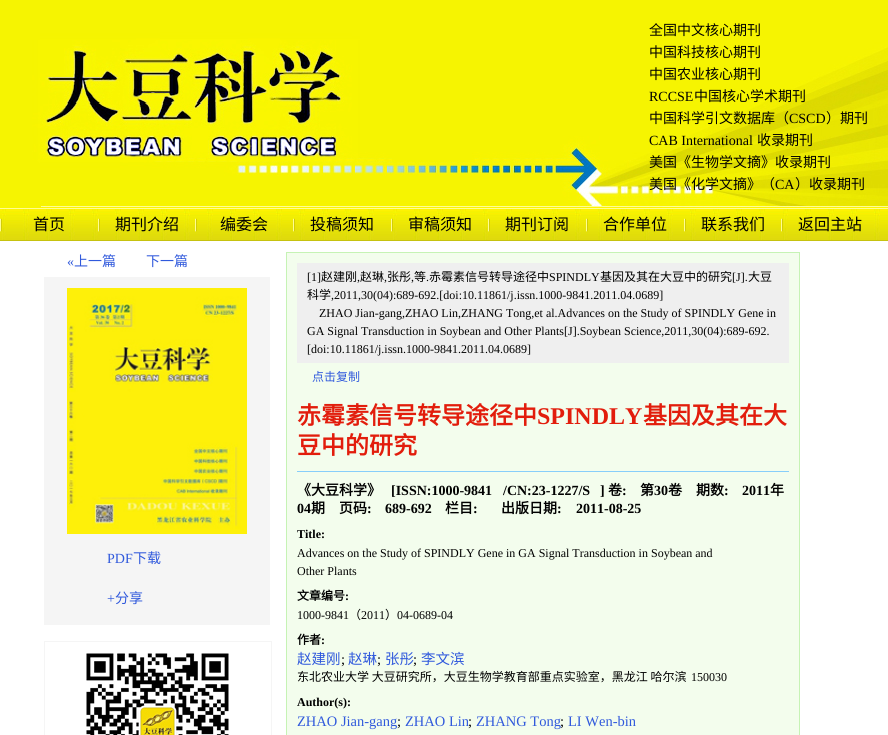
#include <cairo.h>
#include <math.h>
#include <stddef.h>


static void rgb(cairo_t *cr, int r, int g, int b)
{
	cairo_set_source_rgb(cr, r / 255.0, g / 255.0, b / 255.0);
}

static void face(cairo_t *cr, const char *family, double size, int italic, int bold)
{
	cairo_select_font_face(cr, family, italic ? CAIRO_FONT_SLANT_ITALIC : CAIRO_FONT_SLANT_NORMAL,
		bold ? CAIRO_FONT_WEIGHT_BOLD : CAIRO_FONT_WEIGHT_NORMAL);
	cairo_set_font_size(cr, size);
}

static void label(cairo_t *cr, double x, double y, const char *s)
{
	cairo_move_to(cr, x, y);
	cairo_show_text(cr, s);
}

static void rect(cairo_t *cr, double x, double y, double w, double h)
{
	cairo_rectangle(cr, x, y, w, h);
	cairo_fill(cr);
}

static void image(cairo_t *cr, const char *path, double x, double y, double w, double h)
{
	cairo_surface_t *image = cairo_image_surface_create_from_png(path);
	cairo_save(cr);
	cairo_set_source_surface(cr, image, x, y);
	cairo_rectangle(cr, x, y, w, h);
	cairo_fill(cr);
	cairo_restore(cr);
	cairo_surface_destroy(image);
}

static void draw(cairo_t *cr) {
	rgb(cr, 255, 255, 255);
	cairo_paint(cr);
	image(cr, "image0.png", 0, 0, 888, 208);
	face(cr, "Noto Sans CJK SC", 14, 0, 0);
	rgb(cr, 0, 0, 0);
	label(cr, 649, 35, "全国中文核心期刊");
	label(cr, 649, 57, "中国科技核心期刊");
	label(cr, 649, 79, "中国农业核心期刊");
	face(cr, "Liberation Serif", 14, 0, 0);
	label(cr, 649, 101, "RCCSE");
	face(cr, "Noto Sans CJK SC", 14, 0, 0);
	label(cr, 694, 101, "中国核心学术期刊");
	label(cr, 649, 123, "中国科学引文数据库（");
	face(cr, "Liberation Serif", 14, 0, 0);
	label(cr, 789, 123, "CSCD");
	face(cr, "Noto Sans CJK SC", 14, 0, 0);
	label(cr, 826, 123, "）期刊");
	face(cr, "Liberation Serif", 14, 0, 0);
	label(cr, 649, 145, "CAB International");
	face(cr, "Noto Sans CJK SC", 14, 0, 0);
	label(cr, 757, 145, "收录期刊");
	label(cr, 649, 167, "美国《生物学文摘》收录期刊");
	label(cr, 649, 189, "美国《化学文摘》（");
	face(cr, "Liberation Serif", 14, 0, 0);
	label(cr, 775, 189, "CA");
	face(cr, "Noto Sans CJK SC", 14, 0, 0);
	label(cr, 795, 189, "）收录期刊");
	image(cr, "image1.png", 0, 208, 888, 33);
	image(cr, "image2.png", 0, 209, 2, 31);
	face(cr, "Noto Sans CJK SC", 16, 0, 0);
	label(cr, 33, 230, "首页");
	image(cr, "image3.png", 98, 218, 2, 14);
	label(cr, 115, 230, "期刊介绍");
	image(cr, "image3.png", 195, 218, 2, 14);
	label(cr, 220, 230, "编委会");
	image(cr, "image3.png", 293, 218, 2, 14);
	label(cr, 310, 230, "投稿须知");
	image(cr, "image2.png", 391, 209, 2, 31);
	label(cr, 408, 230, "审稿须知");
	image(cr, "image4.png", 488, 209, 2, 26);
	label(cr, 505, 230, "期刊订阅");
	image(cr, "image3.png", 586, 218, 2, 14);
	label(cr, 603, 230, "合作单位");
	image(cr, "image3.png", 684, 218, 2, 14);
	label(cr, 701, 230, "联系我们");
	image(cr, "image2.png", 781, 209, 2, 31);
	label(cr, 798, 230, "返回主站");
	face(cr, "Liberation Serif", 14, 0, 0);
	rgb(cr, 48, 89, 220);
	label(cr, 67, 266, "«");
	face(cr, "Noto Sans CJK SC", 14, 0, 0);
	label(cr, 74, 266, "上一篇");
	label(cr, 146, 266, "下一篇");
	rgb(cr, 245, 245, 245);
	rect(cr, 44, 277, 226, 348);
	image(cr, "image5.png", 67, 288, 180, 246);
	face(cr, "Liberation Serif", 14, 0, 0);
	rgb(cr, 48, 89, 220);
	label(cr, 107, 563, "PDF");
	face(cr, "Noto Sans CJK SC", 14, 0, 0);
	label(cr, 133, 563, "下载");
	face(cr, "Liberation Serif", 14, 0, 0);
	label(cr, 107, 603, "+");
	face(cr, "Noto Sans CJK SC", 14, 0, 0);
	label(cr, 115, 603, "分享");
	cairo_rectangle(cr, 44.5, 641.5, 227, 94);
	rgb(cr, 245, 245, 245);
	cairo_set_line_width(cr, 1);
	cairo_stroke(cr);
	image(cr, "image6.png", 86, 653, 143, 82);
	rgb(cr, 243, 253, 237);
	cairo_rectangle(cr, 286.5, 252.5, 513, 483);
	cairo_fill_preserve(cr);
	rgb(cr, 198, 243, 181);
	cairo_stroke(cr);
	rgb(cr, 239, 239, 239);
	rect(cr, 297, 263, 492, 100);
	face(cr, "Liberation Serif", 12, 0, 0);
	rgb(cr, 0, 0, 0);
	label(cr, 307, 281, "[1]");
	face(cr, "Noto Sans CJK SC", 12, 0, 0);
	label(cr, 321, 281, "赵建刚");
	face(cr, "Liberation Serif", 12, 0, 0);
	label(cr, 357, 281, ",");
	face(cr, "Noto Sans CJK SC", 12, 0, 0);
	label(cr, 360, 281, "赵琳");
	face(cr, "Liberation Serif", 12, 0, 0);
	label(cr, 384, 281, ",");
	face(cr, "Noto Sans CJK SC", 12, 0, 0);
	label(cr, 387, 281, "张彤");
	face(cr, "Liberation Serif", 12, 0, 0);
	label(cr, 411, 281, ",");
	face(cr, "Noto Sans CJK SC", 12, 0, 0);
	label(cr, 414, 281, "等");
	face(cr, "Liberation Serif", 12, 0, 0);
	label(cr, 426, 281, ".");
	face(cr, "Noto Sans CJK SC", 12, 0, 0);
	label(cr, 429, 281, "赤霉素信号转导途径中");
	face(cr, "Liberation Serif", 12, 0, 0);
	label(cr, 549, 281, "SPINDLY");
	face(cr, "Noto Sans CJK SC", 12, 0, 0);
	label(cr, 600, 281, "基因及其在大豆中的研究");
	face(cr, "Liberation Serif", 12, 0, 0);
	label(cr, 732, 281, "[J].");
	face(cr, "Noto Sans CJK SC", 12, 0, 0);
	label(cr, 748, 281, "大豆");
	label(cr, 307, 299, "科学");
	face(cr, "Liberation Serif", 12, 0, 0);
	label(cr, 331, 299, ",2011,30(04):689-692.[doi:10.11861/j.issn.1000-9841.2011.04.0689]");
	label(cr, 319, 317, "ZHAO Jian-gang,ZHAO Lin,ZHANG Tong,et al.Advances on the Study of SPINDLY Gene in");
	label(cr, 307, 335, "GA Signal Transduction in Soybean and Other Plants[J].Soybean Science,2011,30(04):689-692.");
	label(cr, 307, 353, "[doi:10.11861/j.issn.1000-9841.2011.04.0689]");
	face(cr, "Noto Sans CJK SC", 12, 0, 0);
	rgb(cr, 48, 89, 220);
	label(cr, 312, 381, "点击复制");
	face(cr, "Noto Sans CJK SC", 24, 0, 1);
	rgb(cr, 226, 29, 12);
	label(cr, 297, 424, "赤霉素信号转导途径中");
	face(cr, "Liberation Serif", 24, 0, 1);
	label(cr, 537, 424, "SPINDLY");
	face(cr, "Noto Sans CJK SC", 24, 0, 1);
	label(cr, 643, 424, "基因及其在大");
	label(cr, 297, 454, "豆中的研究");
	rgb(cr, 135, 206, 250);
	rect(cr, 297, 471, 492, 1);
	face(cr, "Noto Sans CJK SC", 14, 0, 1);
	rgb(cr, 0, 0, 0);
	label(cr, 297, 495, "《大豆科学》");
	face(cr, "Liberation Serif", 14, 0, 1);
	label(cr, 391, 495, "[ISSN:1000-9841");
	label(cr, 503, 495, "/CN:23-1227/S");
	label(cr, 600, 495, "]");
	face(cr, "Noto Sans CJK SC", 14, 0, 1);
	label(cr, 608, 495, "卷");
	face(cr, "Liberation Serif", 14, 0, 1);
	label(cr, 622, 495, ":");
	face(cr, "Noto Sans CJK SC", 14, 0, 1);
	label(cr, 640, 495, "第");
	face(cr, "Liberation Serif", 14, 0, 1);
	label(cr, 654, 495, "30");
	face(cr, "Noto Sans CJK SC", 14, 0, 1);
	label(cr, 668, 495, "卷");
	label(cr, 696, 495, "期数");
	face(cr, "Liberation Serif", 14, 0, 1);
	label(cr, 724, 495, ":");
	label(cr, 742, 495, "2011");
	face(cr, "Noto Sans CJK SC", 14, 0, 1);
	label(cr, 770, 495, "年");
	face(cr, "Liberation Serif", 14, 0, 1);
	label(cr, 297, 513, "04");
	face(cr, "Noto Sans CJK SC", 14, 0, 1);
	label(cr, 311, 513, "期");
	label(cr, 339, 513, "页码");
	face(cr, "Liberation Serif", 14, 0, 1);
	label(cr, 367, 513, ":");
	label(cr, 385, 513, "689-692");
	face(cr, "Noto Sans CJK SC", 14, 0, 1);
	label(cr, 445, 513, "栏目");
	face(cr, "Liberation Serif", 14, 0, 1);
	label(cr, 473, 513, ":");
	face(cr, "Noto Sans CJK SC", 14, 0, 1);
	label(cr, 501, 513, "出版日期");
	face(cr, "Liberation Serif", 14, 0, 1);
	label(cr, 557, 513, ":");
	label(cr, 576, 513, "2011-08-25");
	face(cr, "Liberation Serif", 12, 0, 1);
	label(cr, 297, 538, "Title:");
	face(cr, "Liberation Serif", 12, 0, 0);
	label(cr, 297, 557, "Advances on the Study of SPINDLY Gene in GA Signal Transduction in Soybean and");
	label(cr, 297, 575, "Other Plants");
	face(cr, "Noto Sans CJK SC", 12, 0, 1);
	label(cr, 297, 600, "文章编号");
	face(cr, "Liberation Serif", 12, 0, 1);
	label(cr, 345, 600, ":");
	face(cr, "Liberation Serif", 12, 0, 0);
	label(cr, 297, 619, "1000-9841");
	face(cr, "Noto Sans CJK SC", 12, 0, 0);
	label(cr, 349, 619, "（");
	face(cr, "Liberation Serif", 12, 0, 0);
	label(cr, 361, 619, "2011");
	face(cr, "Noto Sans CJK SC", 12, 0, 0);
	label(cr, 385, 619, "）");
	face(cr, "Liberation Serif", 12, 0, 0);
	label(cr, 397, 619, "04-0689-04");
	face(cr, "Noto Sans CJK SC", 12, 0, 1);
	label(cr, 297, 644, "作者");
	face(cr, "Liberation Serif", 12, 0, 1);
	label(cr, 321, 644, ":");
	face(cr, "Noto Sans CJK SC", 14.5, 0, 0);
	rgb(cr, 48, 89, 220);
	label(cr, 297, 664, "赵建刚");
	face(cr, "Liberation Serif", 14.5, 0, 0);
	rgb(cr, 0, 0, 0);
	label(cr, 341, 664, ";");
	face(cr, "Noto Sans CJK SC", 14.5, 0, 0);
	rgb(cr, 48, 89, 220);
	label(cr, 348, 664, "赵琳");
	face(cr, "Liberation Serif", 14.5, 0, 0);
	rgb(cr, 0, 0, 0);
	label(cr, 377, 664, ";");
	face(cr, "Noto Sans CJK SC", 14.5, 0, 0);
	rgb(cr, 48, 89, 220);
	label(cr, 385, 664, "张彤");
	face(cr, "Liberation Serif", 14.5, 0, 0);
	rgb(cr, 0, 0, 0);
	label(cr, 413, 664, ";");
	face(cr, "Noto Sans CJK SC", 14.5, 0, 0);
	rgb(cr, 48, 89, 220);
	label(cr, 421, 664, "李文滨");
	face(cr, "Noto Sans CJK SC", 12, 0, 0);
	rgb(cr, 0, 0, 0);
	label(cr, 297, 681, "东北农业大学 大豆研究所，大豆生物学教育部重点实验室，黑龙江 哈尔滨");
	face(cr, "Liberation Serif", 12, 0, 0);
	label(cr, 691, 681, "150030");
	face(cr, "Liberation Serif", 12, 0, 1);
	label(cr, 297, 706, "Author(s):");
	face(cr, "Liberation Serif", 14.5, 0, 0);
	rgb(cr, 48, 89, 220);
	label(cr, 297, 726, "ZHAO Jian-gang");
	rgb(cr, 0, 0, 0);
	label(cr, 397, 726, ";");
	rgb(cr, 48, 89, 220);
	label(cr, 405, 726, "ZHAO Lin");
	rgb(cr, 0, 0, 0);
	label(cr, 468, 726, ";");
	rgb(cr, 48, 89, 220);
	label(cr, 476, 726, "ZHANG Tong");
	rgb(cr, 0, 0, 0);
	label(cr, 560, 726, ";");
	rgb(cr, 48, 89, 220);
	label(cr, 568, 726, "LI Wen-bin");
}

int main(void) {
	cairo_surface_t *surface = cairo_image_surface_create(CAIRO_FORMAT_RGB24, 888, 735);
	cairo_t *cr = cairo_create(surface);
	cairo_font_options_t *options = cairo_font_options_create();
	cairo_font_options_set_hint_metrics(options, CAIRO_HINT_METRICS_OFF);
	cairo_font_options_set_hint_style(options, CAIRO_HINT_STYLE_NONE);
	cairo_set_font_options(cr, options);
	cairo_set_miter_limit(cr, 4);
	draw(cr);
	cairo_surface_write_to_png(surface, "render.png");
	cairo_font_options_destroy(options);
	cairo_destroy(cr);
	cairo_surface_destroy(surface);
	return 0;
}
